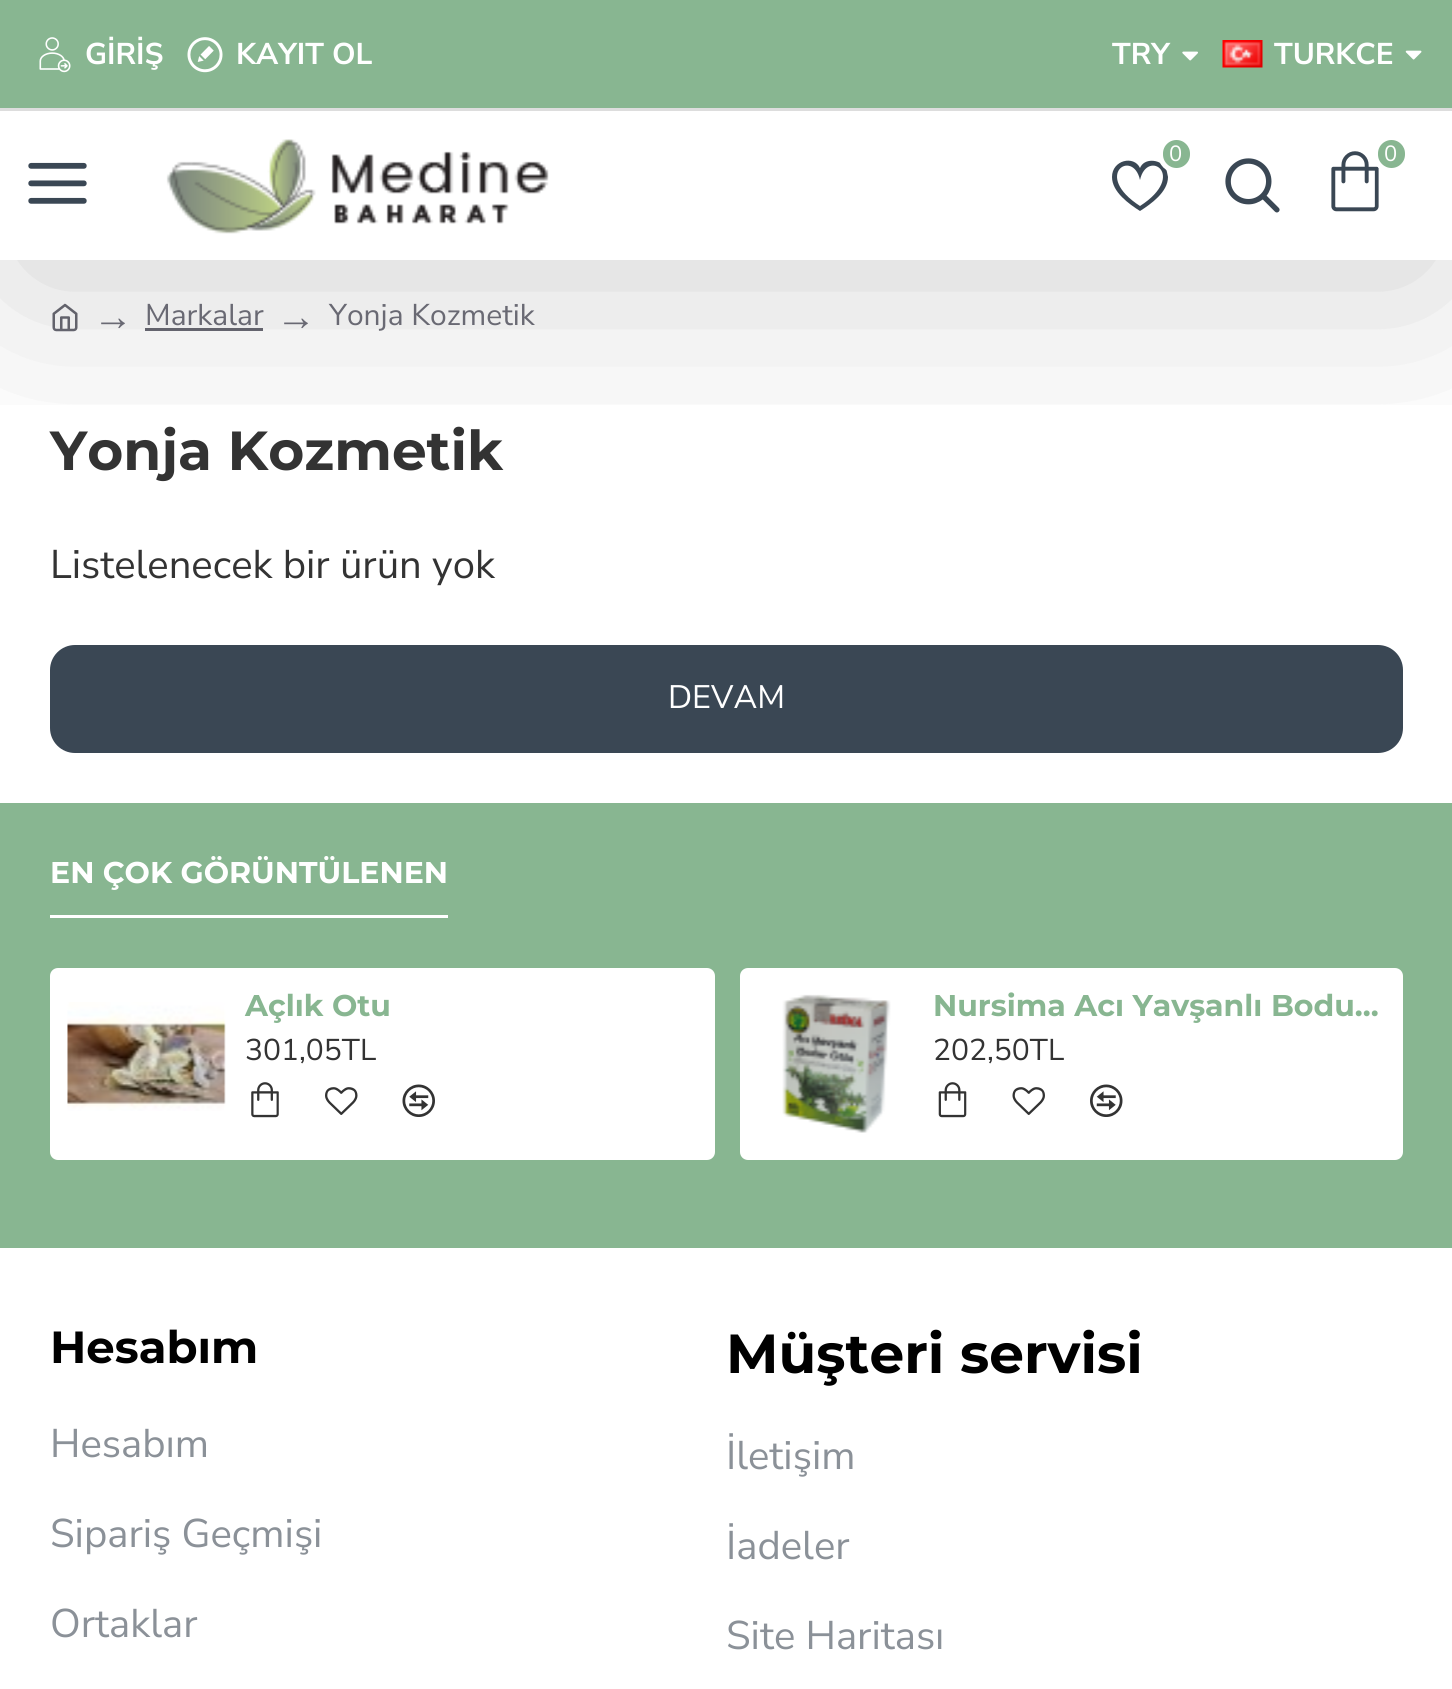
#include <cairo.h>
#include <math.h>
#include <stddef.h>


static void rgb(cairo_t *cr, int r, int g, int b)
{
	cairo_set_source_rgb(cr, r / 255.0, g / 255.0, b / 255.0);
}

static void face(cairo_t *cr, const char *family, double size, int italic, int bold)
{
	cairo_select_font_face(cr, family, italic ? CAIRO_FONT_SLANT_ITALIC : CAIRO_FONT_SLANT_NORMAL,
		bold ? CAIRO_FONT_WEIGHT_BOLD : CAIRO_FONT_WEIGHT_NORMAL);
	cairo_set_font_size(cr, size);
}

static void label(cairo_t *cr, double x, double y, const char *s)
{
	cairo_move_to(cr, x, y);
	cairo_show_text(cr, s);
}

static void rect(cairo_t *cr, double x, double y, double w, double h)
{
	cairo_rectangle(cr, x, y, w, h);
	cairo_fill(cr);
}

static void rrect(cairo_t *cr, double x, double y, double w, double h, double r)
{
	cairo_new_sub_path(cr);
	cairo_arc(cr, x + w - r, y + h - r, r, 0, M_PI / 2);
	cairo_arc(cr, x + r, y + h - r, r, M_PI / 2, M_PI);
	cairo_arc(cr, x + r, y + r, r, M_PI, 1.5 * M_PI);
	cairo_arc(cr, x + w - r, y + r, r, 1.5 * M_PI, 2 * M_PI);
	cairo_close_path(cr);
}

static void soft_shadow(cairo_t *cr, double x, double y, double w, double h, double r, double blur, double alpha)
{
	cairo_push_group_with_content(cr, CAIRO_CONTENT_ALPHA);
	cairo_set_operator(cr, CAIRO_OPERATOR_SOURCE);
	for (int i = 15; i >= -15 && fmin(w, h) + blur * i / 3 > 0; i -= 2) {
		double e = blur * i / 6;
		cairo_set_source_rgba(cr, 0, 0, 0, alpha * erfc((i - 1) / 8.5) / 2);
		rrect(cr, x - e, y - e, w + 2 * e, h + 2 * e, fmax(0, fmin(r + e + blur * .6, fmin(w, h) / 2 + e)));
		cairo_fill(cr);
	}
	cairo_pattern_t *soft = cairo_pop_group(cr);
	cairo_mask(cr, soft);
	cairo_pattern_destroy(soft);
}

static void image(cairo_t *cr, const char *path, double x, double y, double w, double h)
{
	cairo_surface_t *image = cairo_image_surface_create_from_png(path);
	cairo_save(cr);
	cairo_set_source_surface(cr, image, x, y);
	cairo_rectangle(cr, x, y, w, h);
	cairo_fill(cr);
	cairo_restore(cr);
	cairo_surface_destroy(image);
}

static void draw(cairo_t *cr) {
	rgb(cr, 255, 255, 255);
	cairo_paint(cr);
	image(cr, "image9.png", 52, 303, 26, 29);
	rgb(cr, 105, 105, 115);
	rect(cr, 145, 328, 118, 3);
	cairo_save(cr);
	cairo_rectangle(cr, 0, 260, 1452, 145);
	cairo_clip(cr);
	rgb(cr, 0, 0, 0);
	soft_shadow(cr, 25, 173, 1403, 100, 0, 112.5, 0.2);
	cairo_restore(cr);
	rgb(cr, 136, 182, 145);
	rect(cr, 0, 0, 1452, 108);
	rgb(cr, 221, 221, 221);
	rect(cr, 0, 108, 1452, 3);
	image(cr, "image0.png", 39, 37, 32, 36);
	face(cr, "Nunito Sans", 30, 0, 1);
	rgb(cr, 255, 255, 255);
	label(cr, 85, 64, "GİRİŞ");
	image(cr, "image1.png", 187, 37, 36, 36);
	label(cr, 236, 64, "KAYIT OL");
	label(cr, 1112, 64, "TRY");
	image(cr, "image2.png", 1182, 51, 16, 10);
	image(cr, "image3.png", 1222, 40, 41, 28);
	label(cr, 1274, 64, "TURKCE");
	image(cr, "image4.png", 1405, 50, 17, 10);
	image(cr, "image5.png", 166, 139, 383, 95);
	rgb(cr, 58, 71, 84);
	cairo_new_path(cr);
	cairo_move_to(cr, 1140, 180);
	cairo_curve_to(cr, 1147, 148, 1188, 175, 1140, 206);
	cairo_curve_to(cr, 1092, 175, 1133, 148, 1140, 180);
	cairo_close_path(cr);
	cairo_move_to(cr, 1112, 177);
	cairo_curve_to(cr, 1112, 192, 1129, 204, 1140, 211);
	cairo_curve_to(cr, 1151, 204, 1168, 192, 1168, 177);
	cairo_curve_to(cr, 1167, 173, 1167, 170, 1165, 167);
	cairo_curve_to(cr, 1159, 159, 1144, 158, 1140, 168);
	cairo_curve_to(cr, 1134, 155, 1112, 160, 1112, 177);
	cairo_close_path(cr);
	cairo_fill(cr);
	rgb(cr, 136, 182, 145);
	rrect(cr, 1160.5, 137.5, 32, 33, 16);
	cairo_fill_preserve(cr);
	rgb(cr, 255, 255, 255);
	cairo_set_line_width(cr, 5);
	cairo_stroke(cr);
	face(cr, "Nunito Sans", 22, 0, 0);
	label(cr, 1169, 161, "0");
	image(cr, "image6.png", 1331, 151, 48, 61);
	rgb(cr, 136, 182, 145);
	rrect(cr, 1375.5, 137.5, 32, 33, 16);
	cairo_fill_preserve(cr);
	rgb(cr, 255, 255, 255);
	cairo_stroke(cr);
	label(cr, 1384, 161, "0");
	image(cr, "image7.png", 28, 162, 59, 42);
	image(cr, "image8.png", 1225, 158, 55, 55);
	face(cr, "Liberation Serif", 40, 0, 0);
	rgb(cr, 105, 105, 115);
	label(cr, 93, 330, "→");
	face(cr, "Nunito Sans", 30, 0, 0);
	label(cr, 145, 325, "Markalar");
	face(cr, "Liberation Serif", 40, 0, 0);
	label(cr, 276, 330, "→");
	face(cr, "Nunito Sans", 30, 0, 0);
	label(cr, 329, 325, "Yonja Kozmetik");
	face(cr, "Montserrat", 55, 0, 1);
	rgb(cr, 51, 51, 51);
	label(cr, 50, 470, "Yonja Kozmetik");
	face(cr, "Nunito Sans", 40, 0, 0);
	label(cr, 50, 578, "Listelenecek bir ürün yok");
	rgb(cr, 58, 71, 84);
	rrect(cr, 50, 645, 1353, 108, 25);
	cairo_fill(cr);
	face(cr, "Nunito Sans", 32.5, 0, 0);
	rgb(cr, 255, 255, 255);
	label(cr, 668, 708, "DEVAM");
	rgb(cr, 136, 182, 145);
	rect(cr, 0, 803, 1452, 445);
	rgb(cr, 255, 255, 255);
	rect(cr, 50, 915, 398, 3);
	face(cr, "Montserrat", 30, 0, 1);
	label(cr, 50, 883, "EN ÇOK GÖRÜNTÜLENEN");
	rrect(cr, 50, 968, 665, 192, 8);
	cairo_fill(cr);
	image(cr, "image10.png", 67, 1002, 159, 109);
	rgb(cr, 136, 182, 145);
	label(cr, 245, 1016, "Açlık Otu");
	face(cr, "Nunito Sans", 30, 0, 0);
	rgb(cr, 51, 51, 51);
	label(cr, 245, 1060, "301,05TL");
	image(cr, "image11.png", 251, 1082, 28, 36);
	image(cr, "image12.png", 325, 1087, 33, 28);
	image(cr, "image13.png", 402, 1084, 33, 33);
	rgb(cr, 255, 255, 255);
	rrect(cr, 740, 968, 663, 192, 8);
	cairo_fill(cr);
	image(cr, "image14.png", 782, 994, 109, 139);
	face(cr, "Montserrat", 30, 0, 1);
	rgb(cr, 136, 182, 145);
	label(cr, 933, 1016, "Nursima Acı Yavşanlı Bodu…");
	face(cr, "Nunito Sans", 30, 0, 0);
	rgb(cr, 51, 51, 51);
	label(cr, 933, 1060, "202,50TL");
	image(cr, "image15.png", 938, 1082, 29, 36);
	image(cr, "image16.png", 1012, 1087, 33, 28);
	image(cr, "image17.png", 1090, 1084, 33, 33);
	face(cr, "Montserrat", 45, 0, 1);
	rgb(cr, 0, 0, 0);
	label(cr, 50, 1363, "Hesabım");
	face(cr, "Nunito Sans", 40, 0, 0);
	rgb(cr, 139, 145, 152);
	label(cr, 50, 1457, "Hesabım");
	label(cr, 50, 1547, "Sipariş Geçmişi");
	label(cr, 50, 1637, "Ortaklar");
	face(cr, "Montserrat", 55, 0, 1);
	rgb(cr, 0, 0, 0);
	label(cr, 726, 1373, "Müşteri servisi");
	face(cr, "Nunito Sans", 40, 0, 0);
	rgb(cr, 139, 145, 152);
	label(cr, 726, 1469, "İletişim");
	label(cr, 726, 1559, "İadeler");
	label(cr, 726, 1649, "Site Haritası");
}

int main(void) {
	cairo_surface_t *surface = cairo_image_surface_create(CAIRO_FORMAT_RGB24, 1452, 1689);
	cairo_t *cr = cairo_create(surface);
	cairo_font_options_t *options = cairo_font_options_create();
	cairo_font_options_set_hint_metrics(options, CAIRO_HINT_METRICS_OFF);
	cairo_font_options_set_hint_style(options, CAIRO_HINT_STYLE_NONE);
	cairo_set_font_options(cr, options);
	cairo_set_miter_limit(cr, 4);
	draw(cr);
	cairo_surface_write_to_png(surface, "render.png");
	cairo_font_options_destroy(options);
	cairo_destroy(cr);
	cairo_surface_destroy(surface);
	return 0;
}
